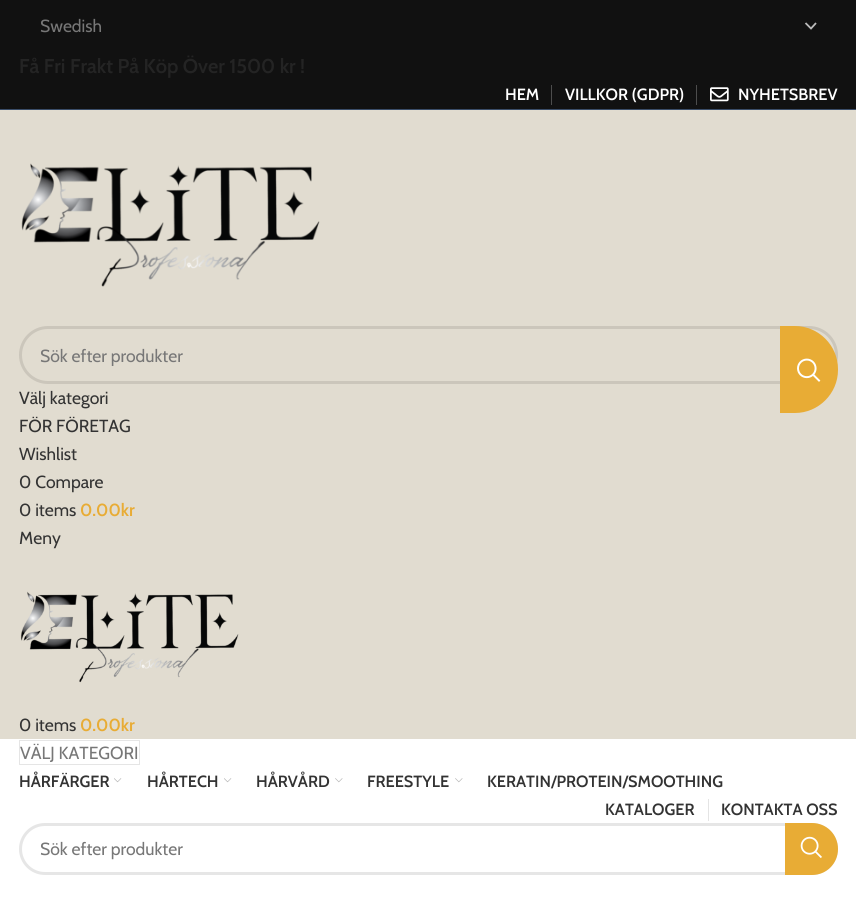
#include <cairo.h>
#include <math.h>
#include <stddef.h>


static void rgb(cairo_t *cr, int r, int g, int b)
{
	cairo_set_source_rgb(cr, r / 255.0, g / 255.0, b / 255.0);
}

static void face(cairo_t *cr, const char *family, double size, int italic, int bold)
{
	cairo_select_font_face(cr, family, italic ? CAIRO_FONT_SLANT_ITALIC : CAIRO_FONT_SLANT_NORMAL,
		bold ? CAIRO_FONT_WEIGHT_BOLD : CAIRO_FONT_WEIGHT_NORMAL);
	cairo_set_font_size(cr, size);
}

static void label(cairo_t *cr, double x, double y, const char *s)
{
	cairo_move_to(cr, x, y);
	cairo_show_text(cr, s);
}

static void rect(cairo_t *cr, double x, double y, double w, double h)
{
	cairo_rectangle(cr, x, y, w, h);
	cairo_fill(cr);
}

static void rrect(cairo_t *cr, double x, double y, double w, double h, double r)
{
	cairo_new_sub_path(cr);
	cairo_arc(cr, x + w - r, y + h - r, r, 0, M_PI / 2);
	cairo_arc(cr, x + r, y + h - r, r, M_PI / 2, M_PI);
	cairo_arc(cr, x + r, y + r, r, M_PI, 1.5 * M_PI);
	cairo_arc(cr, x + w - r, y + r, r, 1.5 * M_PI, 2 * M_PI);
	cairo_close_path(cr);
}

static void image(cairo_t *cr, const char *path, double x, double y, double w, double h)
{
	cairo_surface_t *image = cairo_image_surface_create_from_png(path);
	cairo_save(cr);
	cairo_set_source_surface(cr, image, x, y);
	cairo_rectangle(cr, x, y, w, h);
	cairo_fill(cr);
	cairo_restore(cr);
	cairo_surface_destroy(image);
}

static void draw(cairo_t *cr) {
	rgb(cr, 255, 255, 255);
	cairo_paint(cr);
	rgb(cr, 17, 17, 17);
	rect(cr, 0, 0, 856, 109);
	rgb(cr, 58, 77, 105);
	rect(cr, 0, 109, 856, 1);
	cairo_new_path(cr);
	cairo_move_to(cr, 805.5, 23);
	cairo_line_to(cr, 811, 28.5);
	cairo_line_to(cr, 816, 23);
	rgb(cr, 187, 187, 187);
	cairo_set_line_width(cr, 1.8);
	cairo_stroke(cr);
	face(cr, "Cabin", 17.5, 0, 0);
	rgb(cr, 119, 119, 119);
	label(cr, 40, 32, "Swedish");
	face(cr, "Cabin SemiBold", 20, 0, 0);
	rgb(cr, 36, 36, 36);
	label(cr, 19, 73, "Få Fri Frakt På Köp Över 1500 kr !");
	face(cr, "Cabin SemiBold", 16.25, 0, 0);
	rgb(cr, 255, 255, 255);
	label(cr, 505, 100, "HEM");
	rgb(cr, 77, 77, 77);
	rect(cr, 551, 85, 1, 20);
	rgb(cr, 255, 255, 255);
	label(cr, 565, 100, "VILLKOR (GDPR)");
	rgb(cr, 77, 77, 77);
	rect(cr, 696, 85, 1, 20);
	image(cr, "image0.png", 710, 87, 19, 15);
	rgb(cr, 255, 255, 255);
	label(cr, 738, 100, "NYHETSBREV");
	rgb(cr, 225, 220, 208);
	rect(cr, 0, 110, 856, 629);
	image(cr, "image1.png", 21, 163, 299, 124);
	rrect(cr, 20.5, 327.5, 816, 55, 27.5);
	rgb(cr, 203, 198, 187);
	cairo_set_line_width(cr, 3);
	cairo_stroke(cr);
	cairo_save(cr);
	cairo_rectangle(cr, 40, 344, 738, 22);
	cairo_clip(cr);
	face(cr, "Cabin", 17.5, 0, 0);
	rgb(cr, 119, 119, 119);
	label(cr, 40, 362, "Sök efter produkter");
	cairo_restore(cr);
	rgb(cr, 232, 172, 53);
	cairo_new_path(cr);
	cairo_move_to(cr, 780, 326);
	cairo_line_to(cr, 795, 326);
	cairo_curve_to(cr, 818.5, 326, 838, 345.5, 838, 369);
	cairo_line_to(cr, 838, 370);
	cairo_curve_to(cr, 838, 393.5, 818.5, 413, 795, 413);
	cairo_line_to(cr, 780, 413);
	cairo_close_path(cr);
	cairo_fill(cr);
	image(cr, "image2.png", 797, 358, 24, 24);
	face(cr, "Cabin", 17.5, 0, 0);
	rgb(cr, 51, 51, 51);
	label(cr, 19, 404, "Välj kategori");
	label(cr, 19, 432, "FÖR FÖRETAG");
	label(cr, 19, 460, "Wishlist");
	label(cr, 19, 488, "0 Compare");
	label(cr, 19, 516, "0 items");
	face(cr, "Cabin SemiBold", 17.5, 0, 0);
	rgb(cr, 232, 172, 53);
	label(cr, 80, 516, "0.00kr");
	face(cr, "Cabin", 17.5, 0, 0);
	rgb(cr, 51, 51, 51);
	label(cr, 19, 544, "Meny");
	image(cr, "image3.png", 20, 591, 219, 92);
	label(cr, 19, 731, "0 items");
	face(cr, "Cabin SemiBold", 17.5, 0, 0);
	rgb(cr, 232, 172, 53);
	label(cr, 80, 731, "0.00kr");
	face(cr, "Cabin", 17.5, 0, 0);
	rgb(cr, 119, 119, 119);
	label(cr, 20, 759, "VÄLJ KATEGORI");
	rgb(cr, 230, 230, 230);
	cairo_new_path(cr);
	cairo_move_to(cr, 19, 740);
	cairo_line_to(cr, 20, 740);
	cairo_line_to(cr, 20, 741);
	cairo_close_path(cr);
	cairo_move_to(cr, 20, 765);
	cairo_line_to(cr, 19, 765);
	cairo_line_to(cr, 20, 764);
	cairo_close_path(cr);
	cairo_fill(cr);
	cairo_set_source_rgba(cr, 0.506, 0.506, 0.506, 0.2);
	cairo_new_path(cr);
	cairo_move_to(cr, 19, 765);
	cairo_line_to(cr, 19, 740);
	cairo_line_to(cr, 20, 741);
	cairo_line_to(cr, 20, 764);
	cairo_close_path(cr);
	cairo_fill(cr);
	rgb(cr, 230, 230, 230);
	cairo_new_path(cr);
	cairo_move_to(cr, 20, 740);
	cairo_line_to(cr, 140, 740);
	cairo_line_to(cr, 139, 741);
	cairo_line_to(cr, 20, 741);
	cairo_close_path(cr);
	cairo_fill(cr);
	cairo_set_source_rgba(cr, 0.506, 0.506, 0.506, 0.2);
	cairo_new_path(cr);
	cairo_move_to(cr, 140, 740);
	cairo_line_to(cr, 140, 765);
	cairo_line_to(cr, 139, 764);
	cairo_line_to(cr, 139, 741);
	cairo_close_path(cr);
	cairo_fill(cr);
	cairo_new_path(cr);
	cairo_move_to(cr, 140, 765);
	cairo_line_to(cr, 20, 765);
	cairo_line_to(cr, 20, 764);
	cairo_line_to(cr, 139, 764);
	cairo_close_path(cr);
	cairo_fill(cr);
	face(cr, "Cabin SemiBold", 16.25, 0, 0);
	rgb(cr, 51, 51, 51);
	label(cr, 19, 787, "HÅRFÄRGER");
	image(cr, "image4.png", 114, 778, 8, 5);
	label(cr, 147, 787, "HÅRTECH");
	image(cr, "image4.png", 224, 778, 8, 5);
	label(cr, 256, 787, "HÅRVÅRD");
	image(cr, "image5.png", 335, 778, 8, 5);
	label(cr, 367, 787, "FREESTYLE");
	image(cr, "image5.png", 455, 778, 8, 5);
	label(cr, 487, 787, "KERATIN/PROTEIN/SMOOTHING");
	label(cr, 605, 815, "KATALOGER");
	rgb(cr, 228, 228, 228);
	rect(cr, 708, 799, 1, 22);
	rgb(cr, 51, 51, 51);
	label(cr, 721, 815, "KONTAKTA OSS");
	rrect(cr, 20.5, 824.5, 816, 49, 24.5);
	rgb(cr, 230, 230, 230);
	cairo_stroke(cr);
	face(cr, "Cabin", 17.5, 0, 0);
	rgb(cr, 119, 119, 119);
	label(cr, 40, 855, "Sök efter produkter");
	rgb(cr, 232, 172, 53);
	cairo_new_path(cr);
	cairo_move_to(cr, 785, 823);
	cairo_line_to(cr, 812, 823);
	cairo_curve_to(cr, 826.5, 823, 838, 834.5, 838, 849);
	cairo_curve_to(cr, 838, 863.5, 826.5, 875, 812, 875);
	cairo_line_to(cr, 785, 875);
	cairo_close_path(cr);
	cairo_fill(cr);
	image(cr, "image6.png", 800, 836, 22, 22);
}

int main(void) {
	cairo_surface_t *surface = cairo_image_surface_create(CAIRO_FORMAT_RGB24, 856, 912);
	cairo_t *cr = cairo_create(surface);
	cairo_font_options_t *options = cairo_font_options_create();
	cairo_font_options_set_hint_metrics(options, CAIRO_HINT_METRICS_OFF);
	cairo_font_options_set_hint_style(options, CAIRO_HINT_STYLE_NONE);
	cairo_set_font_options(cr, options);
	cairo_set_miter_limit(cr, 4);
	draw(cr);
	cairo_surface_write_to_png(surface, "render.png");
	cairo_font_options_destroy(options);
	cairo_destroy(cr);
	cairo_surface_destroy(surface);
	return 0;
}
